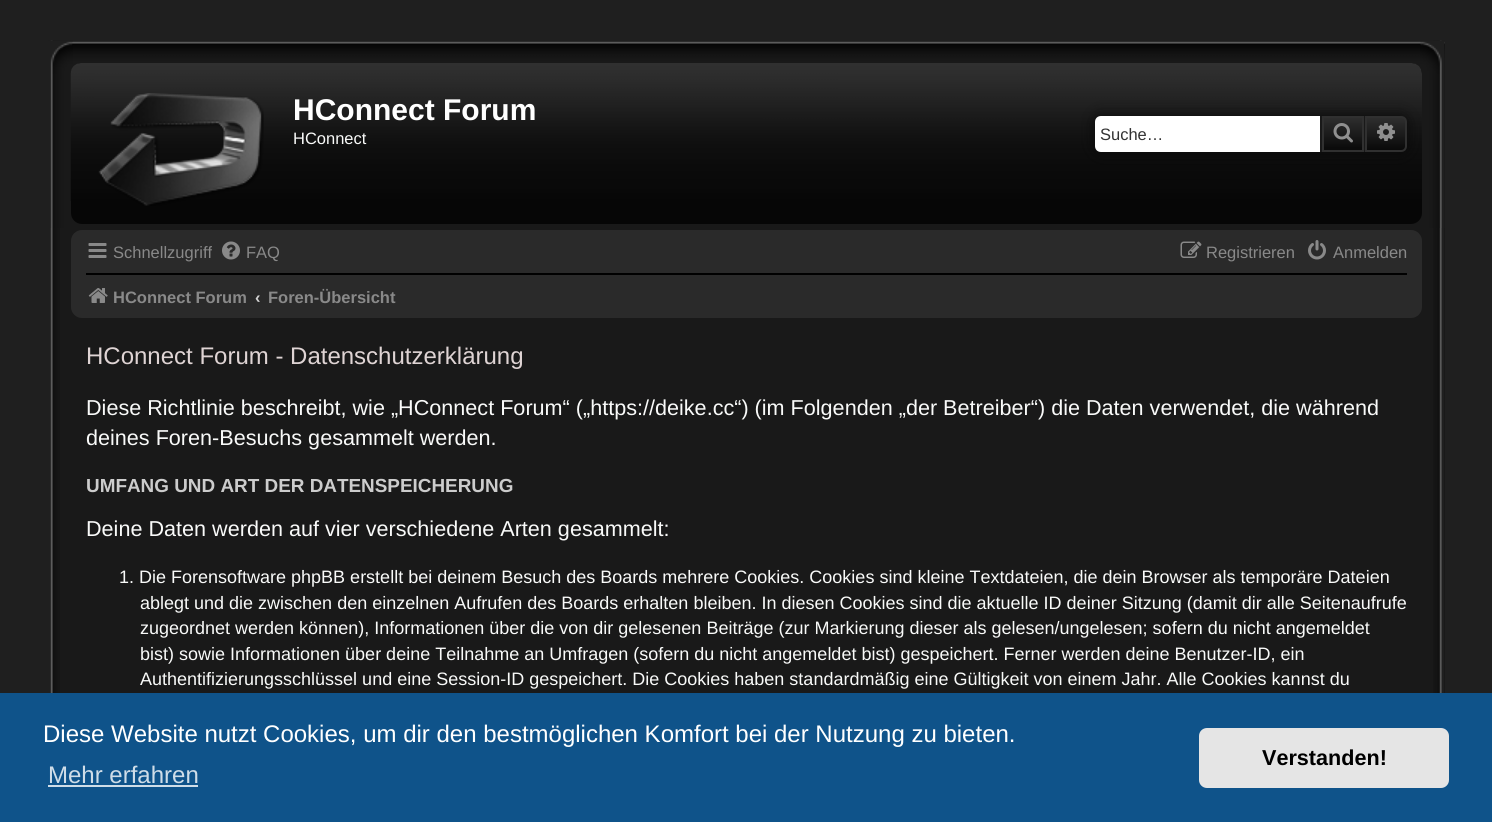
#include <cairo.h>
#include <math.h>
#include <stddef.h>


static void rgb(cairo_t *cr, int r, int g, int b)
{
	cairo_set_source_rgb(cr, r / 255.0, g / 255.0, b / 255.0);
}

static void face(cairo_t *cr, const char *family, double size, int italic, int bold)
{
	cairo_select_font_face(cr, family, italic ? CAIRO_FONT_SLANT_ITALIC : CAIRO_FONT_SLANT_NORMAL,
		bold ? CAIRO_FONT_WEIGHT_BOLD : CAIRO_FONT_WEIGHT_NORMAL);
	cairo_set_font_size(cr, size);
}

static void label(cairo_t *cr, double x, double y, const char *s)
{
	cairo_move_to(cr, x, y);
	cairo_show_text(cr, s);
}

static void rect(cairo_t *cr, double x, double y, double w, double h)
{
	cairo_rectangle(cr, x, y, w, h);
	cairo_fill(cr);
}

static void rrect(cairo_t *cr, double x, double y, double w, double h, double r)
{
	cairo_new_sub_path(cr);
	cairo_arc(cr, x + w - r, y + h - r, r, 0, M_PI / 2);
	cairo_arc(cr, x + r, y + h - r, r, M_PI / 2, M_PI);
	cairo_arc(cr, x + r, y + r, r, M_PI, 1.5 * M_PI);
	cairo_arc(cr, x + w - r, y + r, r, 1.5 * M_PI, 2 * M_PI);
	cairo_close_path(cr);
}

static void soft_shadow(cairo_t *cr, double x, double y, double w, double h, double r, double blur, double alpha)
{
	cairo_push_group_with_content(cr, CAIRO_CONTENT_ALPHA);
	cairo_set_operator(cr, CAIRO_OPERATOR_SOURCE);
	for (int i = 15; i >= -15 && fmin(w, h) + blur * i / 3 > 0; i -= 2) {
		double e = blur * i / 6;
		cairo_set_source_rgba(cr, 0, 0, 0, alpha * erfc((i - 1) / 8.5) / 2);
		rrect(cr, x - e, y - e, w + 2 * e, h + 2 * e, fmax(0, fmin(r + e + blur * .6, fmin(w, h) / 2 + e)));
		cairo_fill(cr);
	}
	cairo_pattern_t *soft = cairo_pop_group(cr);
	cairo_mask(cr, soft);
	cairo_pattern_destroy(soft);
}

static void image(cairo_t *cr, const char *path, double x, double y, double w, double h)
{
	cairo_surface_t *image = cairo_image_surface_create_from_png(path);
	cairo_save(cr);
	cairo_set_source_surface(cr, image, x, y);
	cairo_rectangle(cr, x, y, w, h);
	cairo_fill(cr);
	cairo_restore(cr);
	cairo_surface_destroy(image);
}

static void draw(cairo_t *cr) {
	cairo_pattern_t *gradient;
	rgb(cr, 31, 31, 31);
	cairo_paint(cr);
	rgb(cr, 25, 25, 25);
	rect(cr, 60, 41, 1385, 652);
	image(cr, "image0.png", 48, 40, 12, 653);
	image(cr, "image1.png", 1433, 40, 11, 653);
	image(cr, "image2.png", 48, 40, 1397, 188);
	image(cr, "image3.png", 48, 40, 25, 188);
	image(cr, "image4.png", 1420, 40, 25, 188);
	rgb(cr, 6, 6, 6);
	rrect(cr, 71, 63, 1351, 161, 11);
	cairo_fill(cr);
	image(cr, "image5.png", 70, 63, 1352, 138);
	image(cr, "image6.png", 98, 93, 166, 113);
	face(cr, "Liberation Sans", 30, 0, 1);
	rgb(cr, 255, 255, 255);
	label(cr, 293, 120, "HConnect Forum");
	face(cr, "Liberation Sans", 16.5, 0, 0);
	rgb(cr, 249, 250, 249);
	label(cr, 293, 144, "HConnect");
	rgb(cr, 9, 9, 9);
	soft_shadow(cr, 1095, 116, 312, 36, 6, 7.5, 1);
	rgb(cr, 255, 255, 255);
	cairo_new_path(cr);
	cairo_move_to(cr, 1101, 116);
	cairo_line_to(cr, 1320, 116);
	cairo_line_to(cr, 1320, 152);
	cairo_line_to(cr, 1101, 152);
	cairo_curve_to(cr, 1097.5, 152, 1095, 149.5, 1095, 146);
	cairo_line_to(cr, 1095, 122);
	cairo_curve_to(cr, 1095, 118.5, 1097.5, 116, 1101, 116);
	cairo_close_path(cr);
	cairo_fill(cr);
	rgb(cr, 51, 51, 51);
	label(cr, 1100, 140, "Suche…");
	gradient = cairo_pattern_create_linear(1343, 116, 1343, 152);
	cairo_pattern_add_color_stop_rgba(gradient, 0, 0.188, 0.188, 0.188, 1);
	cairo_pattern_add_color_stop_rgba(gradient, 1, 0.027, 0.027, 0.027, 1);
	cairo_set_source(cr, gradient);
	cairo_pattern_destroy(gradient);
	rect(cr, 1324, 118, 38, 29);
	cairo_rectangle(cr, 1323, 117, 40, 34);
	rgb(cr, 48, 48, 48);
	cairo_stroke(cr);
	rgb(cr, 25, 25, 25);
	rect(cr, 1364, 116, 1, 36);
	rect(cr, 1320, 116, 2, 36);
	image(cr, "image7.png", 1333, 123, 20, 20);
	gradient = cairo_pattern_create_linear(1386, 116, 1386, 152);
	cairo_pattern_add_color_stop_rgba(gradient, 0, 0.188, 0.188, 0.188, 1);
	cairo_pattern_add_color_stop_rgba(gradient, 1, 0.027, 0.027, 0.027, 1);
	cairo_set_source(cr, gradient);
	cairo_pattern_destroy(gradient);
	cairo_new_path(cr);
	cairo_move_to(cr, 1366, 117);
	cairo_line_to(cr, 1401, 117);
	cairo_curve_to(cr, 1404, 117, 1406, 119, 1406, 122);
	cairo_line_to(cr, 1406, 146);
	cairo_curve_to(cr, 1406, 149, 1404, 151, 1401, 151);
	cairo_line_to(cr, 1366, 151);
	cairo_close_path(cr);
	cairo_fill_preserve(cr);
	rgb(cr, 48, 48, 48);
	cairo_stroke(cr);
	image(cr, "image8.png", 1377, 123, 18, 18);
	rgb(cr, 42, 42, 42);
	rrect(cr, 71, 230, 1351, 88, 11);
	cairo_fill(cr);
	image(cr, "image9.png", 88, 243, 19, 15);
	rgb(cr, 137, 137, 137);
	label(cr, 113, 258, "Schnellzugriff");
	image(cr, "image10.png", 222, 241, 18, 19);
	label(cr, 246, 258, "FAQ");
	image(cr, "image11.png", 1180, 241, 22, 17);
	label(cr, 1206, 258, "Registrieren");
	image(cr, "image12.png", 1308, 240, 18, 20);
	label(cr, 1333, 258, "Anmelden");
	rgb(cr, 0, 0, 0);
	rect(cr, 86, 273, 1321, 2);
	image(cr, "image13.png", 88, 288, 20, 15);
	face(cr, "Liberation Sans", 16.5, 0, 1);
	rgb(cr, 137, 137, 137);
	label(cr, 113, 303, "HConnect Forum");
	rgb(cr, 211, 211, 211);
	label(cr, 255, 303, "‹");
	rgb(cr, 137, 137, 137);
	label(cr, 268, 303, "Foren-Übersicht");
	face(cr, "Liberation Sans", 24, 0, 0);
	rgb(cr, 223, 212, 212);
	label(cr, 86, 364, "HConnect Forum - Datenschutzerklärung");
	face(cr, "Liberation Sans", 21.6, 0, 0);
	rgb(cr, 249, 250, 249);
	label(cr, 86, 415, "Diese Richtlinie beschreibt, wie „HConnect Forum“ („https://deike.cc“) (im Folgenden „der Betreiber“) die Daten verwendet, die während");
	label(cr, 86, 445, "deines Foren-Besuchs gesammelt werden.");
	face(cr, "Liberation Sans", 18.9, 0, 1);
	rgb(cr, 204, 204, 204);
	label(cr, 86, 492, "UMFANG UND ART DER DATENSPEICHERUNG");
	face(cr, "Liberation Sans", 21.6, 0, 0);
	rgb(cr, 249, 250, 249);
	label(cr, 86, 536, "Deine Daten werden auf vier verschiedene Arten gesammelt:");
	face(cr, "Liberation Sans", 18, 0, 0);
	label(cr, 119, 583, "1. Die Forensoftware phpBB erstellt bei deinem Besuch des Boards mehrere Cookies. Cookies sind kleine Textdateien, die dein Browser als temporäre Dateien");
	label(cr, 140, 609, "ablegt und die zwischen den einzelnen Aufrufen des Boards erhalten bleiben. In diesen Cookies sind die aktuelle ID deiner Sitzung (damit dir alle Seitenaufrufe");
	label(cr, 140, 634, "zugeordnet werden können), Informationen über die von dir gelesenen Beiträge (zur Markierung dieser als gelesen/ungelesen; sofern du nicht angemeldet");
	label(cr, 140, 660, "bist) sowie Informationen über deine Teilnahme an Umfragen (sofern du nicht angemeldet bist) gespeichert. Ferner werden deine Benutzer-ID, ein");
	label(cr, 140, 685, "Authentifizierungsschlüssel und eine Session-ID gespeichert. Die Cookies haben standardmäßig eine Gültigkeit von einem Jahr. Alle Cookies kannst du");
	rgb(cr, 15, 83, 138);
	rect(cr, 0, 693, 1492, 129);
	face(cr, "Liberation Sans", 24, 0, 0);
	rgb(cr, 255, 255, 255);
	label(cr, 43, 742, "Diese Website nutzt Cookies, um dir den bestmöglichen Komfort bei der Nutzung zu bieten.");
	rgb(cr, 207, 221, 232);
	label(cr, 48, 783, "Mehr erfahren");
	rect(cr, 48, 785, 150, 2);
	rgb(cr, 229, 229, 229);
	rrect(cr, 1199, 728, 250, 60, 8);
	cairo_fill(cr);
	face(cr, "Liberation Sans", 21.6, 0, 1);
	rgb(cr, 0, 0, 0);
	label(cr, 1262, 765, "Verstanden!");
}

int main(void) {
	cairo_surface_t *surface = cairo_image_surface_create(CAIRO_FORMAT_RGB24, 1492, 822);
	cairo_t *cr = cairo_create(surface);
	cairo_font_options_t *options = cairo_font_options_create();
	cairo_font_options_set_hint_metrics(options, CAIRO_HINT_METRICS_OFF);
	cairo_font_options_set_hint_style(options, CAIRO_HINT_STYLE_NONE);
	cairo_set_font_options(cr, options);
	cairo_set_miter_limit(cr, 4);
	draw(cr);
	cairo_surface_write_to_png(surface, "render.png");
	cairo_font_options_destroy(options);
	cairo_destroy(cr);
	cairo_surface_destroy(surface);
	return 0;
}
